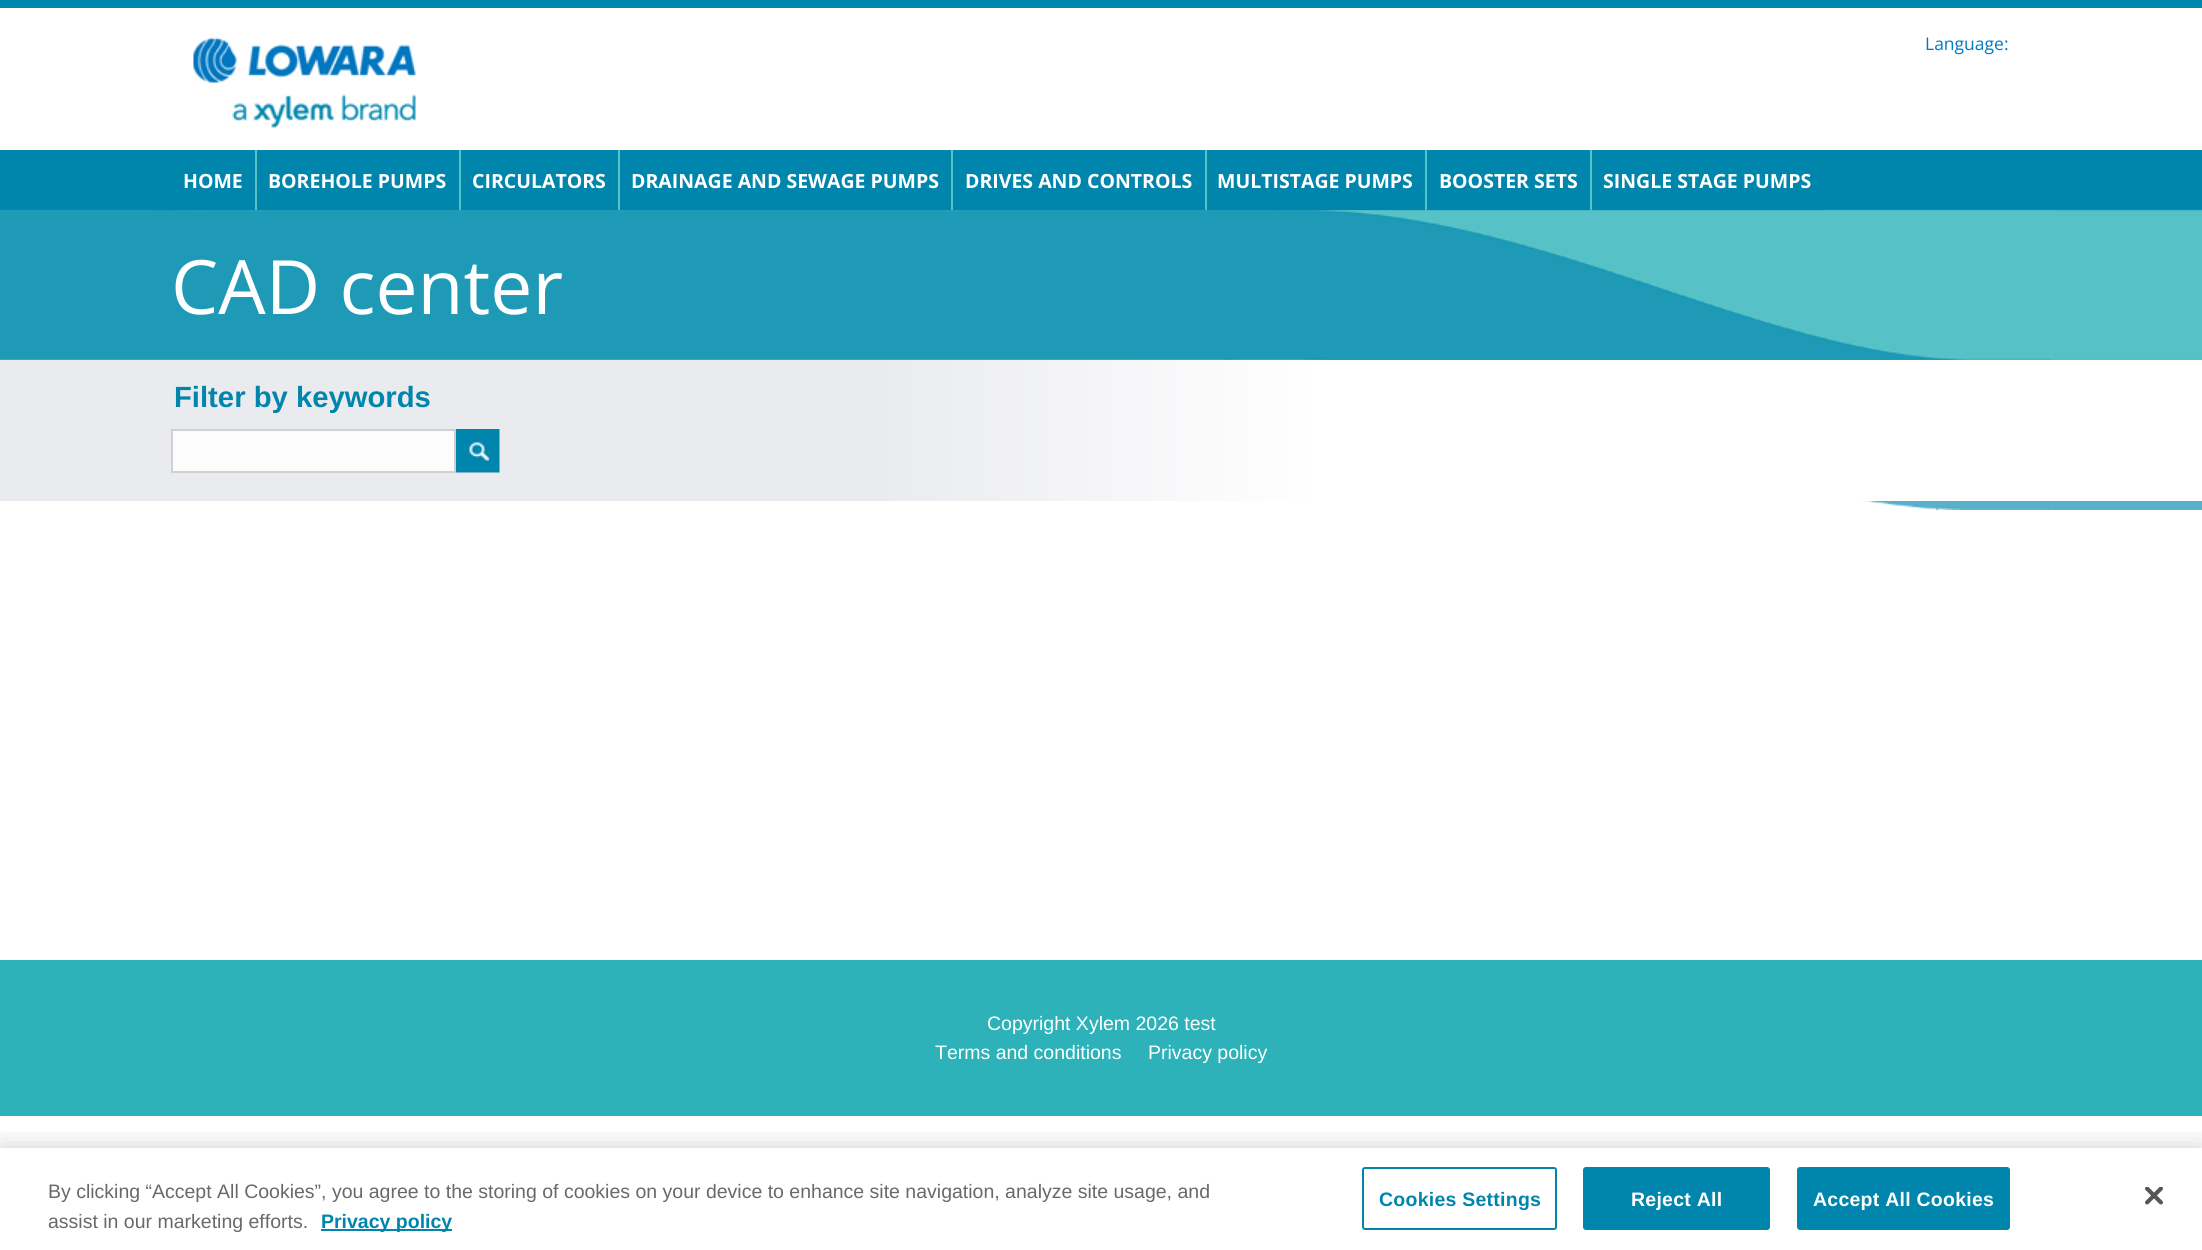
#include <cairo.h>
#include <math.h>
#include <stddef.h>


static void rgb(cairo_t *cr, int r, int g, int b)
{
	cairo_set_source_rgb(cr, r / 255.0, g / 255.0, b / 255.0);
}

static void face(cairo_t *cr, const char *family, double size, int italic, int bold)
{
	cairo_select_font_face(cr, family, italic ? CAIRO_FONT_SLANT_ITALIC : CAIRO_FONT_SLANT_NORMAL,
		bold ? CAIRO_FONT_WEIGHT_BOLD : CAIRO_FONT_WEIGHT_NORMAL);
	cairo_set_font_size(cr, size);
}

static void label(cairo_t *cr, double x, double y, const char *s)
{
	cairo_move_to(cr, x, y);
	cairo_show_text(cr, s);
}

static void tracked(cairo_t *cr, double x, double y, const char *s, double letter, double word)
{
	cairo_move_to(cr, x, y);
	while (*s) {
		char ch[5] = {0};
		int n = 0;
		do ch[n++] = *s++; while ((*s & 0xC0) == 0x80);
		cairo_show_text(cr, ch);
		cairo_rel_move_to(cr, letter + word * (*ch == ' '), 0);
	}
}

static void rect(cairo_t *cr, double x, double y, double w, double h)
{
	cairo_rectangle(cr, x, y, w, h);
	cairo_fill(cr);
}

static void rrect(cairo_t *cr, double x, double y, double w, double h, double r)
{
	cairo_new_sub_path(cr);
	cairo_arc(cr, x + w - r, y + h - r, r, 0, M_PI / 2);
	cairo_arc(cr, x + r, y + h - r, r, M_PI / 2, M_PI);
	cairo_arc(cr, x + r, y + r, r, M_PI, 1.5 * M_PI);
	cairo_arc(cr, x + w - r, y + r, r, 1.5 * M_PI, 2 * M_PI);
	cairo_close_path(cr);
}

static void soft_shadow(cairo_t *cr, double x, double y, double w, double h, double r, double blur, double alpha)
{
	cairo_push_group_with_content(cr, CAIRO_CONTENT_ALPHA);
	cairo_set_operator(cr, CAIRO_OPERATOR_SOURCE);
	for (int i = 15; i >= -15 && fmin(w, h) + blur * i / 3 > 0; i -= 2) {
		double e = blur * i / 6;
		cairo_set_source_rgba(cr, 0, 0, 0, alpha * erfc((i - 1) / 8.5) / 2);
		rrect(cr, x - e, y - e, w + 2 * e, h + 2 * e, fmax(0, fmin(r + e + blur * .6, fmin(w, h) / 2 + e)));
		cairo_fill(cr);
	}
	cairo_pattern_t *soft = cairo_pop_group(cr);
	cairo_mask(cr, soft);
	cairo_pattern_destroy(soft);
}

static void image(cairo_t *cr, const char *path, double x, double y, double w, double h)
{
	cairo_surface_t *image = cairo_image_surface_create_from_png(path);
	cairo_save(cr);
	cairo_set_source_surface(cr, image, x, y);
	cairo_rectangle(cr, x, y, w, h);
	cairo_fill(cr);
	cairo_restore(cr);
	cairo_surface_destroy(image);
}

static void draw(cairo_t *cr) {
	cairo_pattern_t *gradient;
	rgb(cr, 255, 255, 255);
	cairo_paint(cr);
	image(cr, "image0.png", 0, 150, 2202, 360);
	rgb(cr, 0, 133, 173);
	rect(cr, 0, 0, 2202, 8);
	image(cr, "image1.png", 193, 37, 223, 91);
	face(cr, "Open Sans", 17.5, 0, 0);
	rgb(cr, 0, 123, 195);
	label(cr, 1925, 50, "Language:");
	rgb(cr, 0, 133, 173);
	rect(cr, 171, 209, 84, 1);
	face(cr, "Open Sans", 19.5, 0, 1);
	rgb(cr, 255, 255, 255);
	label(cr, 183, 188, "HOME");
	rgb(cr, 0, 133, 173);
	rect(cr, 257, 209, 202, 1);
	rgb(cr, 86, 193, 198);
	rect(cr, 255, 150, 2, 60);
	rgb(cr, 255, 255, 255);
	label(cr, 268, 188, "BOREHOLE PUMPS");
	rgb(cr, 0, 133, 173);
	rect(cr, 461, 209, 157, 1);
	rgb(cr, 86, 193, 198);
	rect(cr, 459, 150, 2, 60);
	rgb(cr, 255, 255, 255);
	label(cr, 472, 188, "CIRCULATORS");
	rgb(cr, 0, 133, 173);
	rect(cr, 620, 209, 331, 1);
	rgb(cr, 86, 193, 198);
	rect(cr, 618, 150, 2, 60);
	rgb(cr, 255, 255, 255);
	label(cr, 631, 188, "DRAINAGE AND SEWAGE PUMPS");
	rgb(cr, 0, 133, 173);
	rect(cr, 953, 209, 252, 1);
	rgb(cr, 86, 193, 198);
	rect(cr, 951, 150, 2, 60);
	rgb(cr, 255, 255, 255);
	label(cr, 965, 188, "DRIVES AND CONTROLS");
	rgb(cr, 0, 133, 173);
	rect(cr, 1207, 209, 218, 1);
	rgb(cr, 86, 193, 198);
	rect(cr, 1205, 150, 2, 60);
	rgb(cr, 255, 255, 255);
	label(cr, 1217, 188, "MULTISTAGE PUMPS");
	rgb(cr, 0, 133, 173);
	rect(cr, 1427, 209, 163, 1);
	rgb(cr, 86, 193, 198);
	rect(cr, 1425, 150, 2, 60);
	rgb(cr, 255, 255, 255);
	label(cr, 1439, 188, "BOOSTER SETS");
	rgb(cr, 0, 133, 173);
	rect(cr, 1592, 209, 231, 1);
	rgb(cr, 86, 193, 198);
	rect(cr, 1590, 150, 2, 60);
	rgb(cr, 255, 255, 255);
	label(cr, 1603, 188, "SINGLE STAGE PUMPS");
	face(cr, "Open Sans", 75, 0, 0);
	label(cr, 171, 314, "CAD center");
	gradient = cairo_pattern_create_linear(2202, 431, 0, 430);
	cairo_pattern_add_color_stop_rgba(gradient, 0.4, 1, 1, 1, 1);
	cairo_pattern_add_color_stop_rgba(gradient, 0.6, 0.918, 0.922, 0.937, 1);
	cairo_set_source(cr, gradient);
	cairo_pattern_destroy(gradient);
	rect(cr, 0, 360, 2202, 141);
	face(cr, "Liberation Sans", 29.25, 0, 1);
	rgb(cr, 0, 133, 173);
	label(cr, 174, 407, "Filter by keywords");
	rgb(cr, 252, 252, 252);
	cairo_rectangle(cr, 172, 430, 283, 42);
	cairo_fill_preserve(cr);
	rgb(cr, 208, 208, 208);
	cairo_stroke(cr);
	image(cr, "image2.png", 456, 429, 44, 44);
	rgb(cr, 44, 178, 184);
	rect(cr, 0, 960, 2202, 156);
	face(cr, "Liberation Sans", 19.5, 0, 0);
	rgb(cr, 255, 255, 255);
	label(cr, 987, 1030, "Copyright Xylem 2026 test");
	label(cr, 935, 1059, "Terms and conditions");
	label(cr, 1148, 1059, "Privacy policy");
	cairo_save(cr);
	cairo_rectangle(cr, 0, 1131, 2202, 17);
	cairo_clip(cr);
	rgb(cr, 0, 0, 0);
	soft_shadow(cr, 0, 1148, 2202, 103, 0, 13.5, 0.2);
	cairo_restore(cr);
	rgb(cr, 105, 105, 105);
	label(cr, 48, 1198, "By clicking “Accept All Cookies”, you agree to the storing of cookies on your device to enhance site navigation, analyze site usage, and");
	label(cr, 48, 1228, "assist in our marketing efforts.");
	rgb(cr, 0, 133, 173);
	rect(cr, 321, 1229, 131, 2);
	face(cr, "Liberation Sans", 19.5, 0, 1);
	label(cr, 321, 1228, "Privacy policy");
	rrect(cr, 1363, 1168, 193, 61, 2);
	cairo_stroke(cr);
	tracked(cr, 1379, 1206, "Cookies Settings", 0.25, 0);
	rrect(cr, 1584, 1168, 185, 61, 2);
	cairo_fill_preserve(cr);
	cairo_stroke(cr);
	rgb(cr, 255, 255, 255);
	tracked(cr, 1631, 1206, "Reject All", 0.25, 0);
	rgb(cr, 0, 133, 173);
	rrect(cr, 1798, 1168, 211, 61, 2);
	cairo_fill_preserve(cr);
	cairo_stroke(cr);
	rgb(cr, 255, 255, 255);
	tracked(cr, 1813, 1206, "Accept All Cookies", 0.25, 0);
	image(cr, "image3.png", 2145, 1187, 18, 18);
}

int main(void) {
	cairo_surface_t *surface = cairo_image_surface_create(CAIRO_FORMAT_RGB24, 2202, 1250);
	cairo_t *cr = cairo_create(surface);
	cairo_font_options_t *options = cairo_font_options_create();
	cairo_font_options_set_hint_metrics(options, CAIRO_HINT_METRICS_OFF);
	cairo_font_options_set_hint_style(options, CAIRO_HINT_STYLE_NONE);
	cairo_set_font_options(cr, options);
	cairo_set_miter_limit(cr, 4);
	draw(cr);
	cairo_surface_write_to_png(surface, "render.png");
	cairo_font_options_destroy(options);
	cairo_destroy(cr);
	cairo_surface_destroy(surface);
	return 0;
}
